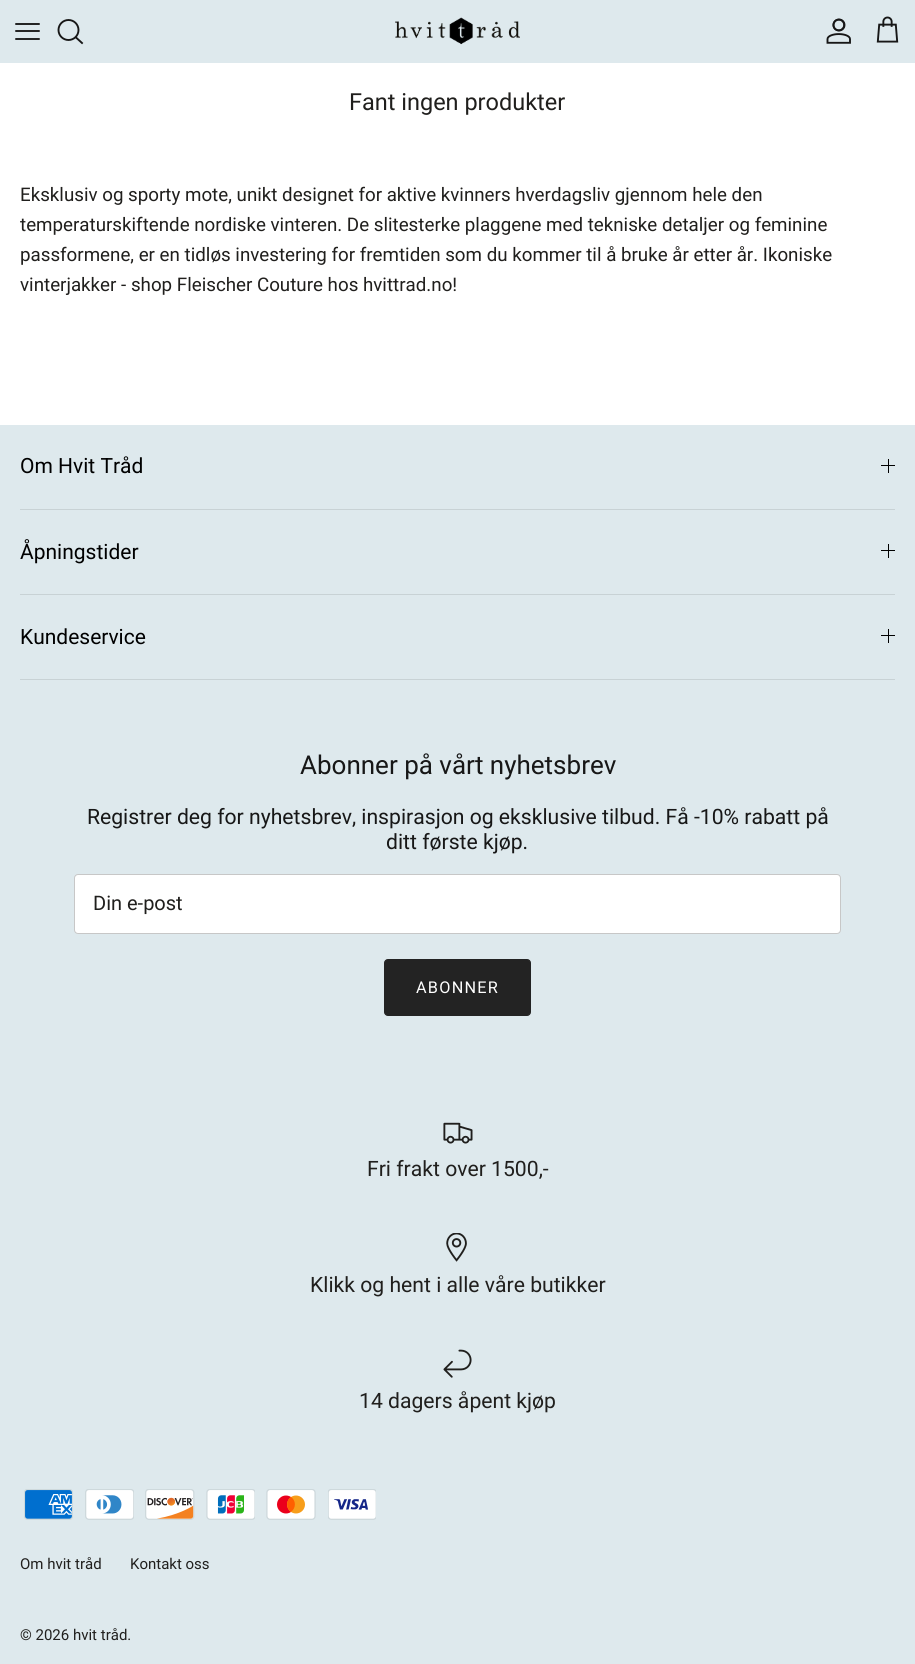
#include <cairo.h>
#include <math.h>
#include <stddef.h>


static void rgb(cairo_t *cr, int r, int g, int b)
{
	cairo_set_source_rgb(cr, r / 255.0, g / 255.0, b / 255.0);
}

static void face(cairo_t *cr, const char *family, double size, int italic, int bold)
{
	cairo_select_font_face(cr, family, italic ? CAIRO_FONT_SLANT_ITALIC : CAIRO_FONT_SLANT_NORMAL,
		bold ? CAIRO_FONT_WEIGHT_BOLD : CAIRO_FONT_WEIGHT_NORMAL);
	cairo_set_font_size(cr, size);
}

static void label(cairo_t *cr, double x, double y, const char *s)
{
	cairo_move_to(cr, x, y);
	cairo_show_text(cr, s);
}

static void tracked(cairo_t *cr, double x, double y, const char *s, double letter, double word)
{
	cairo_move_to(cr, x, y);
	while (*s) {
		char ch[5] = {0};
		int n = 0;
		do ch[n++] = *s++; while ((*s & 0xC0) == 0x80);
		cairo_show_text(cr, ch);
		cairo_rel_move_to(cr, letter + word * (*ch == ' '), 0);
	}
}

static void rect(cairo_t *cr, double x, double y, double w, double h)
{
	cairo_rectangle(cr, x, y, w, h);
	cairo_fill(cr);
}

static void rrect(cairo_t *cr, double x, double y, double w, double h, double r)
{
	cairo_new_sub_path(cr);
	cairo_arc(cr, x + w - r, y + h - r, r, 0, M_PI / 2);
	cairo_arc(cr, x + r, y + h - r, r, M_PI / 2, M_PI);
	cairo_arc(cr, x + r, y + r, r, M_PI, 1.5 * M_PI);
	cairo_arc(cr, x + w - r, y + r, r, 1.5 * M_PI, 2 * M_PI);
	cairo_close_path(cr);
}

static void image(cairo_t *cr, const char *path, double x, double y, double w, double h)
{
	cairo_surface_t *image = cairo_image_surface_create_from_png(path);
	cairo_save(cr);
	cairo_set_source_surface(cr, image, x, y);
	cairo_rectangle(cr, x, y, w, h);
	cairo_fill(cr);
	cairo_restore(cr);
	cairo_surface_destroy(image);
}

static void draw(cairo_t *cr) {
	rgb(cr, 255, 255, 255);
	cairo_paint(cr);
	rgb(cr, 222, 233, 237);
	rect(cr, 0, 0, 915, 63);
	cairo_new_path(cr);
	cairo_move_to(cr, 16, 31);
	cairo_line_to(cr, 39, 31);
	cairo_move_to(cr, 16, 24);
	cairo_line_to(cr, 39, 24);
	cairo_move_to(cr, 16, 39);
	cairo_line_to(cr, 39, 39);
	rgb(cr, 23, 23, 23);
	cairo_set_line_width(cr, 1.9);
	cairo_set_line_cap(cr, CAIRO_LINE_CAP_ROUND);
	cairo_set_line_join(cr, CAIRO_LINE_JOIN_ROUND);
	cairo_stroke(cr);
	cairo_arc(cr, 68.5, 30, 10, 0, 2 * M_PI);
	cairo_set_line_cap(cr, CAIRO_LINE_CAP_BUTT);
	cairo_set_line_join(cr, CAIRO_LINE_JOIN_MITER);
	cairo_stroke(cr);
	cairo_new_path(cr);
	cairo_move_to(cr, 76, 37.5);
	cairo_line_to(cr, 82, 43);
	cairo_set_line_cap(cr, CAIRO_LINE_CAP_SQUARE);
	cairo_stroke(cr);
	image(cr, "image0.png", 395, 17, 125, 28);
	image(cr, "image1.png", 826, 18, 25, 26);
	image(cr, "image2.png", 876, 16, 23, 27);
	face(cr, "Roboto", 23.5, 0, 0);
	rgb(cr, 32, 31, 29);
	label(cr, 349, 110, "Fant ingen produkter");
	face(cr, "Roboto", 18.75, 0, 0);
	label(cr, 20, 201, "Eksklusiv og sporty mote, unikt designet for aktive kvinners hverdagsliv gjennom hele den");
	label(cr, 20, 231, "temperaturskiftende nordiske vinteren. De slitesterke plaggene med tekniske detaljer og feminine");
	label(cr, 20, 261, "passformene, er en tidløs investering for fremtiden som du kommer til å bruke år etter år. Ikoniske");
	label(cr, 20, 291, "vinterjakker - shop Fleischer Couture hos hvittrad.no!");
	rgb(cr, 222, 233, 237);
	rect(cr, 0, 425, 915, 1239);
	rgb(cr, 200, 210, 213);
	rect(cr, 20, 509, 875, 1);
	face(cr, "Roboto", 21, 0, 0);
	rgb(cr, 0, 0, 0);
	label(cr, 20, 473, "Om Hvit Tråd");
	rect(cr, 888, 459, 1, 14);
	rect(cr, 881, 465, 14, 1);
	rgb(cr, 200, 210, 213);
	rect(cr, 20, 594, 875, 1);
	rgb(cr, 0, 0, 0);
	label(cr, 20, 559, "Åpningstider");
	rect(cr, 888, 544, 1, 14);
	rect(cr, 881, 550, 14, 1);
	rgb(cr, 200, 210, 213);
	rect(cr, 20, 679, 875, 1);
	rgb(cr, 0, 0, 0);
	label(cr, 20, 644, "Kundeservice");
	rect(cr, 888, 629, 1, 14);
	rect(cr, 881, 635, 14, 1);
	face(cr, "Roboto", 26, 0, 0);
	rgb(cr, 23, 23, 23);
	label(cr, 300, 774, "Abonner på vårt nyhetsbrev");
	face(cr, "Roboto", 21.15, 0, 0);
	label(cr, 87, 824, "Registrer deg for nyhetsbrev, inspirasjon og eksklusive tilbud. Få -10% rabatt på");
	label(cr, 386, 849, "ditt første kjøp.");
	rgb(cr, 255, 255, 255);
	rrect(cr, 74.5, 874.5, 766, 59, 3.5);
	cairo_fill_preserve(cr);
	rgb(cr, 199, 199, 199);
	cairo_set_line_width(cr, 1);
	cairo_set_line_cap(cr, CAIRO_LINE_CAP_BUTT);
	cairo_stroke(cr);
	face(cr, "Roboto", 20, 0, 0);
	rgb(cr, 32, 31, 29);
	label(cr, 93, 910, "Din e-post");
	rgb(cr, 35, 35, 35);
	rrect(cr, 384.5, 959.5, 146, 56, 3.5);
	cairo_fill_preserve(cr);
	cairo_stroke(cr);
	face(cr, "Roboto", 16.25, 0, 0);
	rgb(cr, 255, 255, 255);
	tracked(cr, 416, 993, "ABONNER", 1.25, 0);
	image(cr, "image3.png", 443, 1122, 30, 22);
	face(cr, "Roboto", 21.15, 0, 0);
	rgb(cr, 32, 31, 29);
	label(cr, 367, 1176, "Fri frakt over 1500,-");
	image(cr, "image4.png", 446, 1233, 21, 29);
	label(cr, 310, 1292, "Klikk og hent i alle våre butikker");
	image(cr, "image5.png", 443, 1349, 29, 29);
	label(cr, 359, 1408, "14 dagers åpent kjøp");
	image(cr, "image6.png", 24, 1489, 49, 31);
	image(cr, "image7.png", 85, 1489, 49, 31);
	image(cr, "image8.png", 145, 1489, 50, 31);
	image(cr, "image9.png", 206, 1489, 49, 31);
	image(cr, "image10.png", 266, 1489, 50, 31);
	image(cr, "image11.png", 328, 1489, 48, 31);
	face(cr, "Roboto", 15, 0, 0);
	label(cr, 20, 1569, "Om hvit tråd");
	label(cr, 130, 1569, "Kontakt oss");
	label(cr, 20, 1640, "© 2026 hvit tråd.");
}

int main(void) {
	cairo_surface_t *surface = cairo_image_surface_create(CAIRO_FORMAT_RGB24, 915, 1664);
	cairo_t *cr = cairo_create(surface);
	cairo_font_options_t *options = cairo_font_options_create();
	cairo_font_options_set_hint_metrics(options, CAIRO_HINT_METRICS_OFF);
	cairo_font_options_set_hint_style(options, CAIRO_HINT_STYLE_NONE);
	cairo_set_font_options(cr, options);
	cairo_set_miter_limit(cr, 4);
	draw(cr);
	cairo_surface_write_to_png(surface, "render.png");
	cairo_font_options_destroy(options);
	cairo_destroy(cr);
	cairo_surface_destroy(surface);
	return 0;
}
